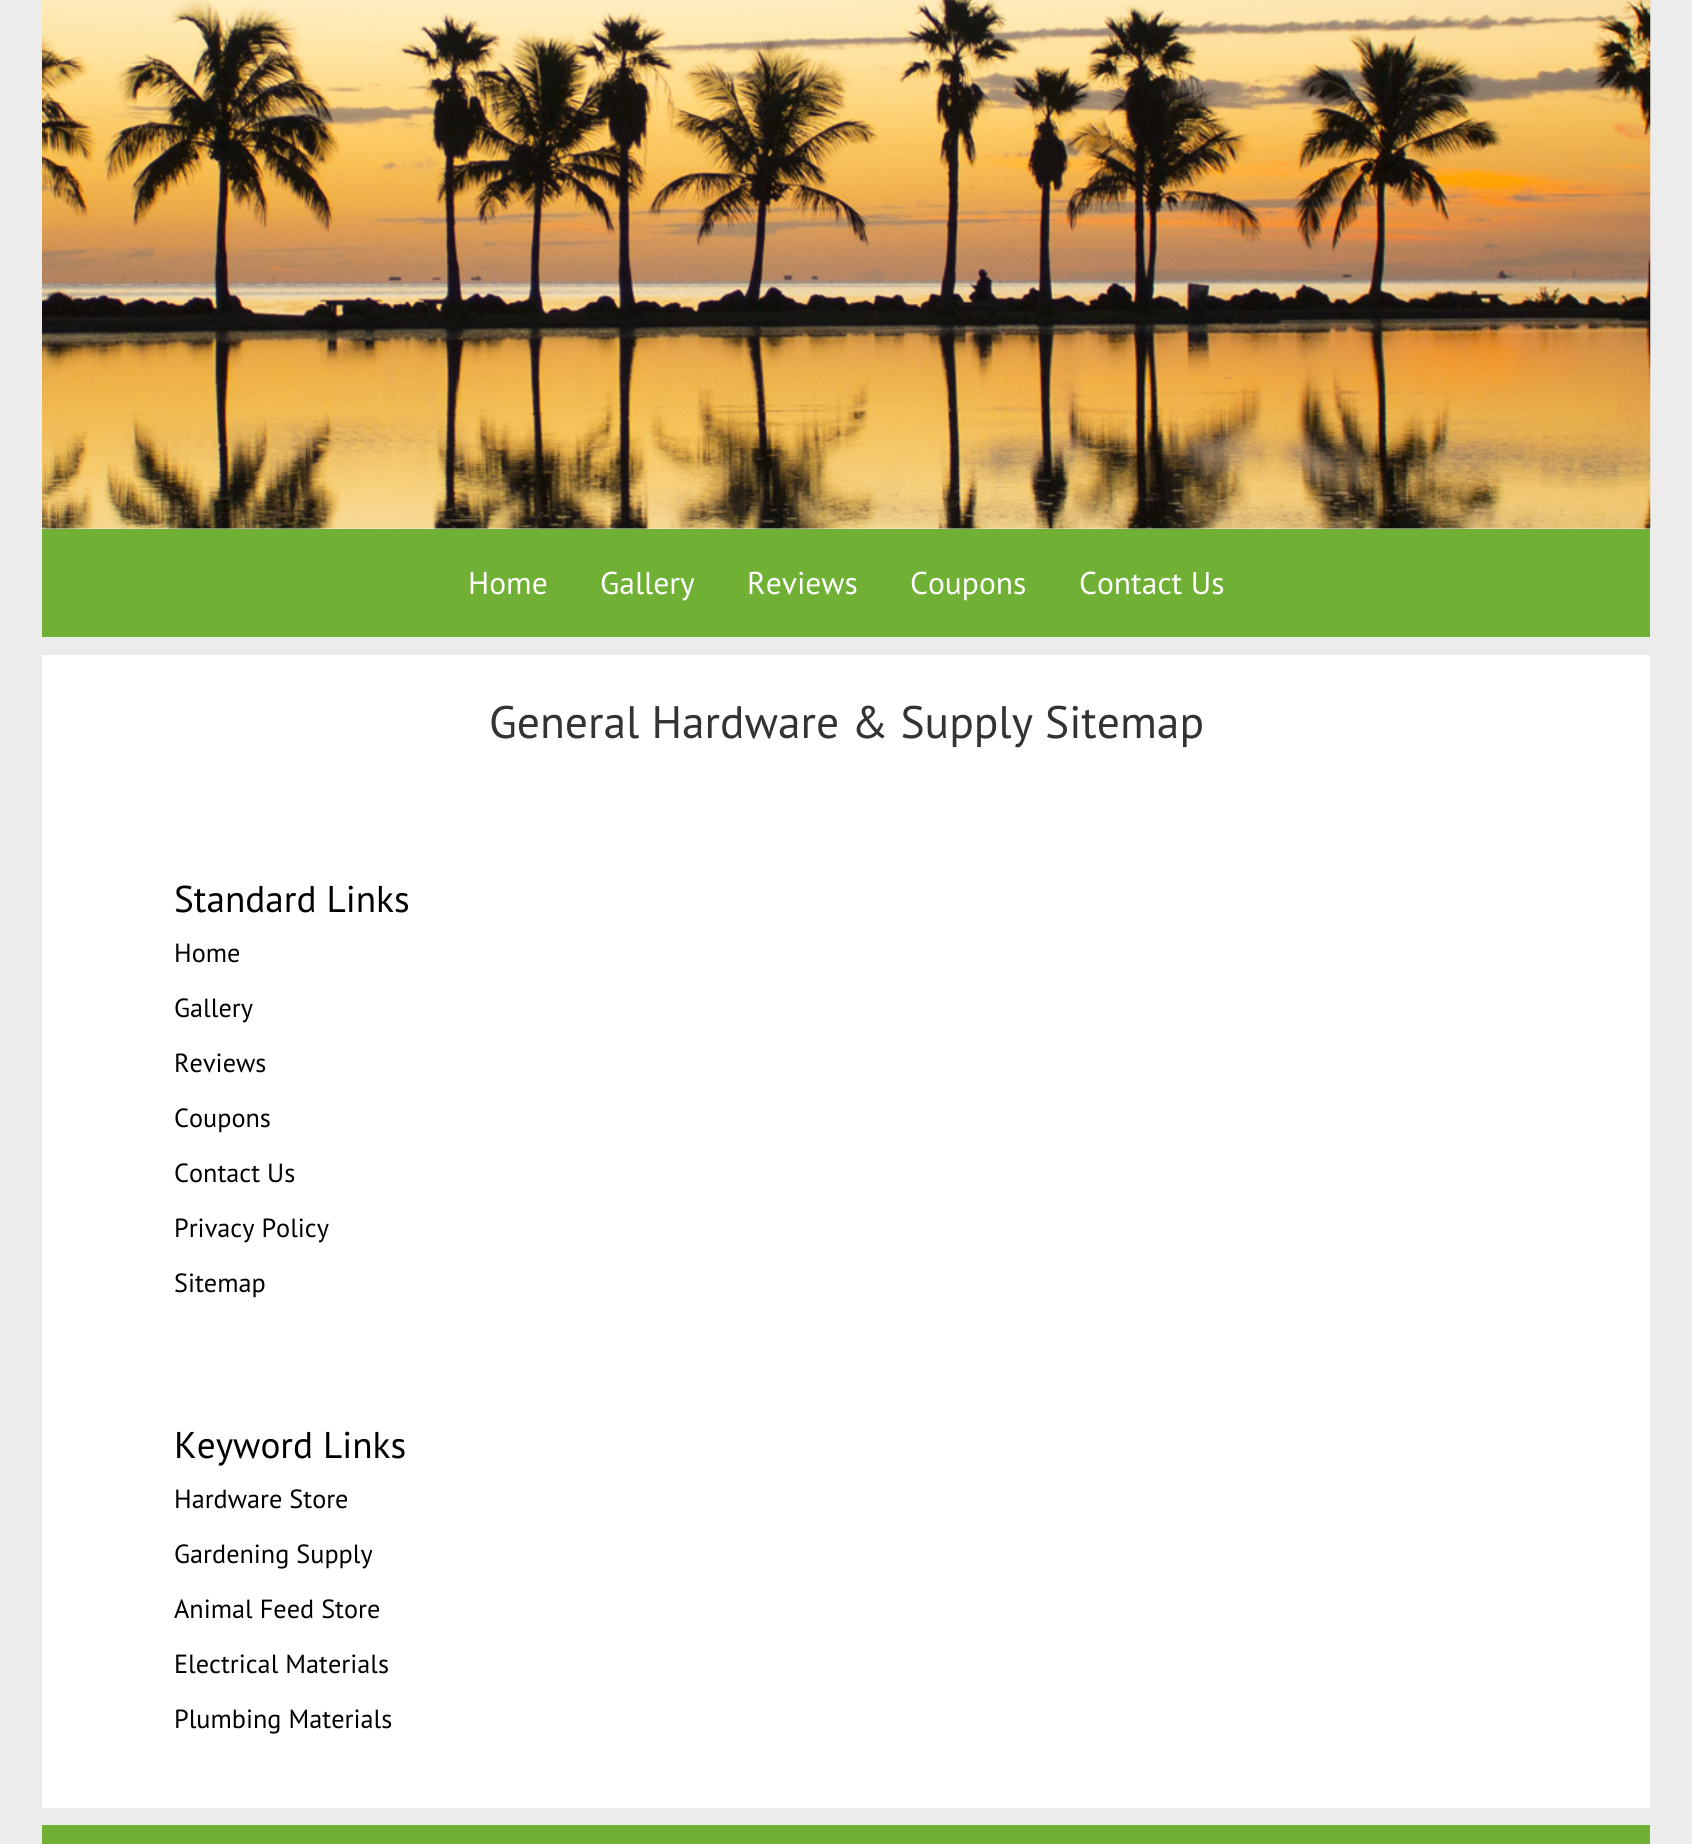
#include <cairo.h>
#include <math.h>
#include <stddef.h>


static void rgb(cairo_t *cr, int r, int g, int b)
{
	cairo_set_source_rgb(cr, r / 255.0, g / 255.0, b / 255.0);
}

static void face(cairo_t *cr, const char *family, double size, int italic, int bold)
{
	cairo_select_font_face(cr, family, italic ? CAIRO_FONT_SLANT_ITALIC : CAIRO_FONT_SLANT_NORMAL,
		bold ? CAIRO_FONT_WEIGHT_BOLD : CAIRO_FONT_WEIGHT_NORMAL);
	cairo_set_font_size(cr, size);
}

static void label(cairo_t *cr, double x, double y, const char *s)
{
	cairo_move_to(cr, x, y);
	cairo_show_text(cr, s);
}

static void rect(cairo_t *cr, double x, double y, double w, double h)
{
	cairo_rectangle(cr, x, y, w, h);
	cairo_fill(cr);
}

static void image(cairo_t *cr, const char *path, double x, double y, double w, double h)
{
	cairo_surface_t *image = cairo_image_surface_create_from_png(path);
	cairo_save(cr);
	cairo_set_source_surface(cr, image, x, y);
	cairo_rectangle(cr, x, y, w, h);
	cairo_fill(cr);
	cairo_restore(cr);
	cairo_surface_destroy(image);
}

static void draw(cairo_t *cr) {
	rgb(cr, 236, 236, 236);
	cairo_paint(cr);
	image(cr, "image0.png", 42, 0, 1609, 529);
	rgb(cr, 112, 176, 52);
	rect(cr, 42, 529, 1608, 108);
	face(cr, "PT Sans", 31.5, 0, 0);
	rgb(cr, 255, 255, 255);
	label(cr, 468, 594, "Home");
	label(cr, 600, 594, "Gallery");
	label(cr, 747, 594, "Reviews");
	label(cr, 910, 594, "Coupons");
	label(cr, 1079, 594, "Contact Us");
	rect(cr, 42, 655, 1608, 1153);
	face(cr, "PT Sans", 45.5, 0, 0);
	rgb(cr, 51, 51, 51);
	label(cr, 489, 738, "General Hardware & Supply Sitemap");
	face(cr, "PT Sans", 37.25, 0, 0);
	rgb(cr, 0, 0, 0);
	label(cr, 174, 912, "Standard Links");
	face(cr, "PT Sans", 26.25, 0, 0);
	label(cr, 174, 962, "Home");
	label(cr, 174, 1017, "Gallery");
	label(cr, 174, 1072, "Reviews");
	label(cr, 174, 1127, "Coupons");
	label(cr, 174, 1182, "Contact Us");
	label(cr, 174, 1237, "Privacy Policy");
	label(cr, 174, 1292, "Sitemap");
	face(cr, "PT Sans", 37.25, 0, 0);
	label(cr, 174, 1458, "Keyword Links");
	face(cr, "PT Sans", 26.25, 0, 0);
	label(cr, 174, 1508, "Hardware Store");
	label(cr, 174, 1563, "Gardening Supply");
	label(cr, 174, 1618, "Animal Feed Store");
	label(cr, 174, 1673, "Electrical Materials");
	label(cr, 174, 1728, "Plumbing Materials");
	rgb(cr, 112, 176, 52);
	rect(cr, 42, 1825, 1608, 19);
}

int main(void) {
	cairo_surface_t *surface = cairo_image_surface_create(CAIRO_FORMAT_RGB24, 1692, 1844);
	cairo_t *cr = cairo_create(surface);
	cairo_font_options_t *options = cairo_font_options_create();
	cairo_font_options_set_hint_metrics(options, CAIRO_HINT_METRICS_OFF);
	cairo_font_options_set_hint_style(options, CAIRO_HINT_STYLE_NONE);
	cairo_set_font_options(cr, options);
	cairo_set_miter_limit(cr, 4);
	draw(cr);
	cairo_surface_write_to_png(surface, "render.png");
	cairo_font_options_destroy(options);
	cairo_destroy(cr);
	cairo_surface_destroy(surface);
	return 0;
}
